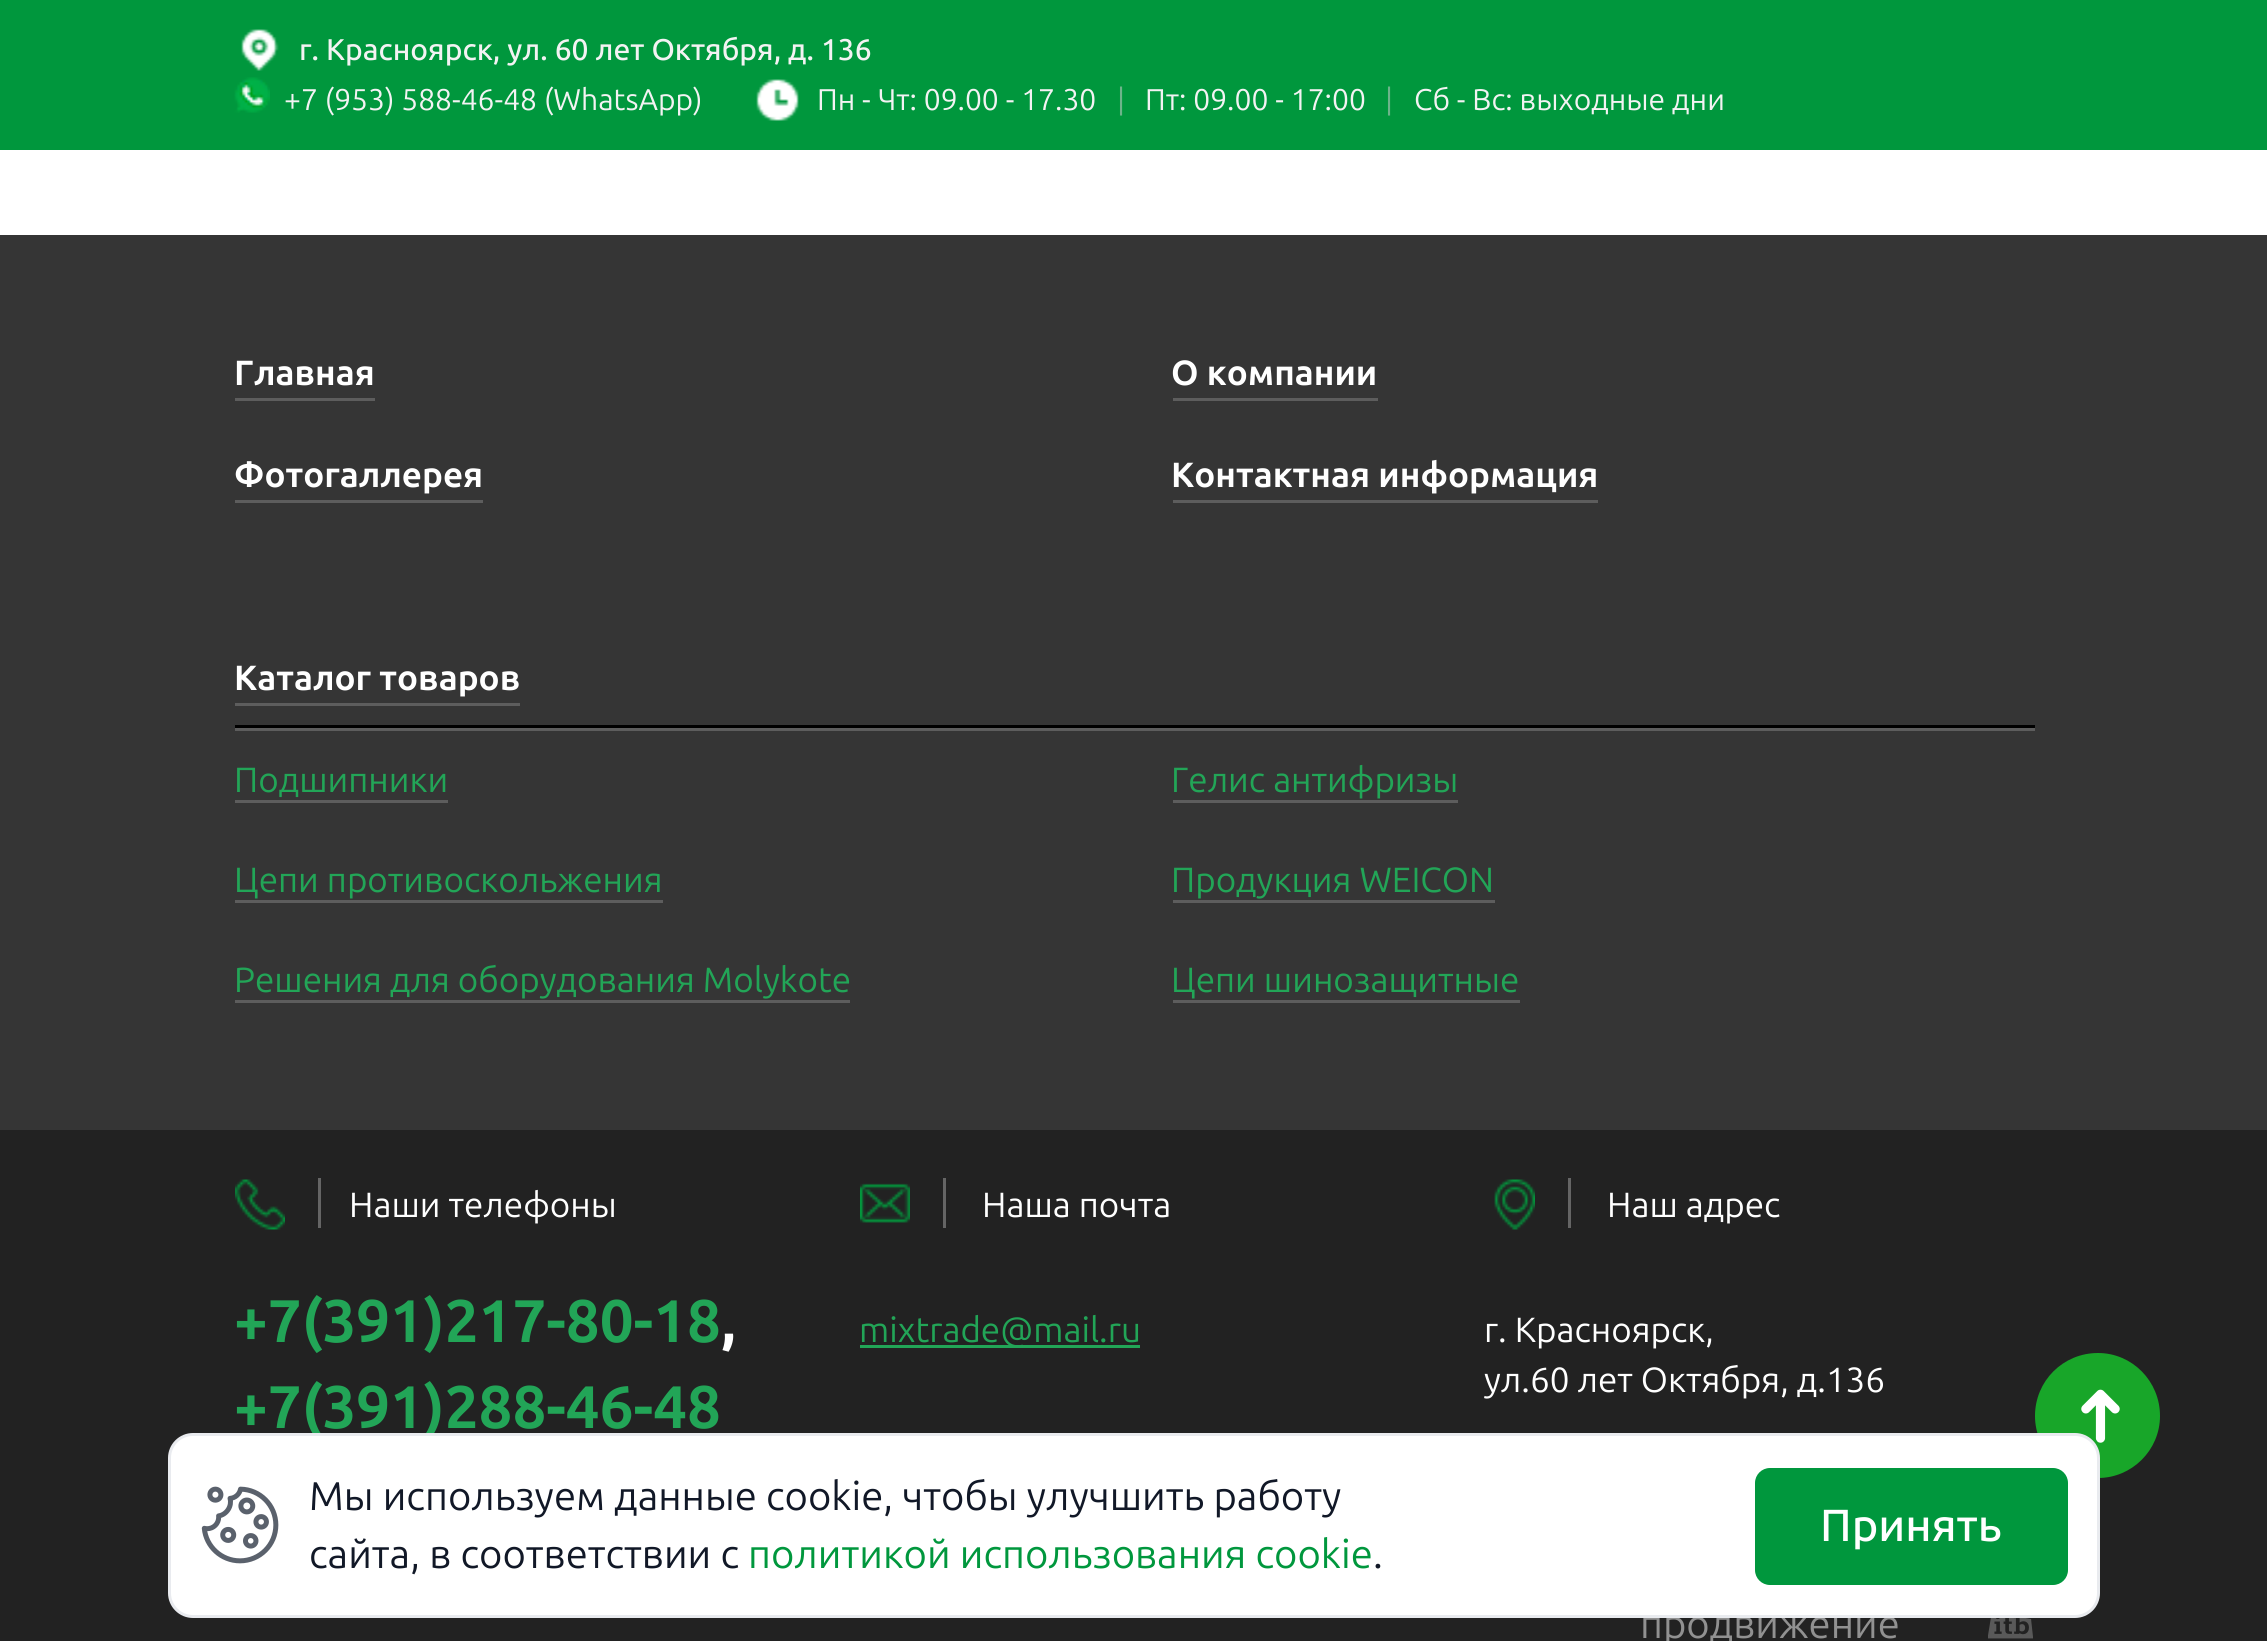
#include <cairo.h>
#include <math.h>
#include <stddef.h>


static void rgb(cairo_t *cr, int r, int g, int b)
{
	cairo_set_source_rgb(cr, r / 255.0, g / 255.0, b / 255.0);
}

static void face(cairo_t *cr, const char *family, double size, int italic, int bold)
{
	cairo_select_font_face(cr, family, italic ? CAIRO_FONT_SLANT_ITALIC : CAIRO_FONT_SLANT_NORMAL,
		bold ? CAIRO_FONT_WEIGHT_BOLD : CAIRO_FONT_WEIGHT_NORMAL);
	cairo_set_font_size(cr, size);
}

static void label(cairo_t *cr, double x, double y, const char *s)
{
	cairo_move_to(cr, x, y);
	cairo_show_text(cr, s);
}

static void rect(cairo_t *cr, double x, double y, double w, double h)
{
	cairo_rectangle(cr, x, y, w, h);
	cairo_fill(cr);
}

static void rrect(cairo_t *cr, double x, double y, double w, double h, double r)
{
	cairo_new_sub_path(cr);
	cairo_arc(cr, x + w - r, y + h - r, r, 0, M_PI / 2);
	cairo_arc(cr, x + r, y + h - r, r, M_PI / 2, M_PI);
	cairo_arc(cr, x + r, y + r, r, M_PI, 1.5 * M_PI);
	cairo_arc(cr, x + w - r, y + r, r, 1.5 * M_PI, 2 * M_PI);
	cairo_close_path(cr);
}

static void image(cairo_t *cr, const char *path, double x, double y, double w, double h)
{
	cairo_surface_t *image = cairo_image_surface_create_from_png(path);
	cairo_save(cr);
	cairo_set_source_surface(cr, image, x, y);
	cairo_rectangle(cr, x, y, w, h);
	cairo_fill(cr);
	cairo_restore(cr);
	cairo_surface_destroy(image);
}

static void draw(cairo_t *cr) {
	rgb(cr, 255, 255, 255);
	cairo_paint(cr);
	rgb(cr, 0, 151, 61);
	rect(cr, 0, 0, 2267, 150);
	image(cr, "image0.png", 241, 29, 38, 42);
	face(cr, "Ubuntu Medium", 30, 0, 0);
	rgb(cr, 243, 243, 243);
	label(cr, 299, 60, "г. Красноярск, ул. 60 лет Октября, д. 136");
	image(cr, "image1.png", 234, 77, 36, 36);
	face(cr, "Ubuntu", 30, 0, 0);
	label(cr, 284, 110, "+7 (953) 588-46-48 (WhatsApp)");
	image(cr, "image2.png", 756, 79, 43, 42);
	label(cr, 817, 110, "Пн - Чт: 09.00 - 17.30");
	rgb(cr, 109, 180, 138);
	label(cr, 1117, 110, "|");
	rgb(cr, 243, 243, 243);
	label(cr, 1145, 110, "Пт: 09.00 - 17:00");
	rgb(cr, 109, 180, 138);
	label(cr, 1385, 110, "|");
	rgb(cr, 243, 243, 243);
	label(cr, 1414, 110, "Сб - Вс: выходные дни");
	rgb(cr, 53, 53, 53);
	rect(cr, 0, 235, 2267, 895);
	rgb(cr, 93, 93, 93);
	rect(cr, 235, 398, 140, 3);
	face(cr, "Ubuntu", 35, 0, 1);
	rgb(cr, 255, 255, 255);
	label(cr, 234, 385, "Главная");
	rgb(cr, 93, 93, 93);
	rect(cr, 1173, 398, 205, 3);
	rgb(cr, 255, 255, 255);
	label(cr, 1171, 385, "О компании");
	rgb(cr, 93, 93, 93);
	rect(cr, 235, 500, 248, 3);
	rgb(cr, 255, 255, 255);
	label(cr, 234, 487, "Фотогаллерея");
	rgb(cr, 93, 93, 93);
	rect(cr, 1173, 500, 425, 3);
	rgb(cr, 255, 255, 255);
	label(cr, 1171, 487, "Контактная информация");
	label(cr, 234, 690, "Каталог товаров");
	rgb(cr, 93, 93, 93);
	rect(cr, 235, 703, 285, 3);
	rgb(cr, 0, 0, 0);
	rect(cr, 235, 725, 1800, 3);
	rgb(cr, 93, 93, 93);
	rect(cr, 235, 728, 1800, 3);
	face(cr, "Ubuntu", 35, 0, 0);
	rgb(cr, 34, 165, 87);
	label(cr, 234, 792, "Подшипники");
	rgb(cr, 93, 93, 93);
	rect(cr, 235, 800, 213, 3);
	rgb(cr, 34, 165, 87);
	label(cr, 234, 892, "Цепи противоскольжения");
	rgb(cr, 93, 93, 93);
	rect(cr, 235, 900, 428, 3);
	rgb(cr, 34, 165, 87);
	label(cr, 1171, 792, "Гелис антифризы");
	rgb(cr, 93, 93, 93);
	rect(cr, 1173, 800, 285, 3);
	rgb(cr, 34, 165, 87);
	label(cr, 1171, 892, "Продукция WEICON");
	rgb(cr, 93, 93, 93);
	rect(cr, 1173, 900, 322, 3);
	rgb(cr, 34, 165, 87);
	label(cr, 234, 992, "Решения для оборудования Molykote");
	rgb(cr, 93, 93, 93);
	rect(cr, 235, 1000, 615, 3);
	rgb(cr, 34, 165, 87);
	label(cr, 1171, 992, "Цепи шинозащитные");
	rgb(cr, 93, 93, 93);
	rect(cr, 1173, 1000, 347, 3);
	rgb(cr, 34, 34, 34);
	rect(cr, 0, 1130, 2267, 511);
	image(cr, "image3.png", 235, 1179, 50, 51);
	rgb(cr, 101, 101, 101);
	rect(cr, 318, 1178, 3, 50);
	rgb(cr, 255, 255, 255);
	label(cr, 349, 1217, "Наши телефоны");
	face(cr, "Ubuntu", 60, 0, 1);
	rgb(cr, 34, 165, 87);
	label(cr, 234, 1342, "+7(391)217-80-18");
	rgb(cr, 255, 255, 255);
	label(cr, 721, 1342, ",");
	rgb(cr, 34, 165, 87);
	label(cr, 234, 1428, "+7(391)288-46-48");
	image(cr, "image4.png", 860, 1183, 50, 40);
	rgb(cr, 101, 101, 101);
	rect(cr, 943, 1178, 3, 50);
	face(cr, "Ubuntu", 35, 0, 0);
	rgb(cr, 255, 255, 255);
	label(cr, 982, 1217, "Наша почта");
	rgb(cr, 34, 165, 87);
	rect(cr, 860, 1345, 280, 3);
	label(cr, 859, 1342, "mixtrade@mail.ru");
	image(cr, "image5.png", 1494, 1179, 41, 51);
	rgb(cr, 101, 101, 101);
	rect(cr, 1568, 1178, 3, 50);
	rgb(cr, 255, 255, 255);
	label(cr, 1607, 1217, "Наш адрес");
	label(cr, 1484, 1342, "г. Красноярск,");
	label(cr, 1484, 1392, "ул.60 лет Октября, д.136");
	face(cr, "Ubuntu", 40, 0, 0);
	rgb(cr, 145, 145, 145);
	label(cr, 1640, 1638, "продвижение");
	image(cr, "image6.png", 1988, 1618, 45, 21);
	rgb(cr, 24, 166, 41);
	cairo_new_path(cr);
	cairo_move_to(cr, 2035, 1416);
	cairo_curve_to(cr, 2035, 1381, 2063, 1353, 2098, 1353);
	cairo_curve_to(cr, 2132, 1353, 2160, 1381, 2160, 1416);
	cairo_curve_to(cr, 2160, 1450, 2132, 1478, 2098, 1478);
	cairo_curve_to(cr, 2063, 1478, 2035, 1450, 2035, 1416);
	cairo_close_path(cr);
	cairo_fill(cr);
	face(cr, "DejaVu Sans", 75, 0, 0);
	rgb(cr, 255, 255, 255);
	cairo_save(cr);
	cairo_translate(cr, 2124, 1447);
	cairo_rotate(cr, -90 * M_PI / 180);
	label(cr, 0, 0, "➜");
	cairo_restore(cr);
	rrect(cr, 169.5, 1434.5, 1929, 182, 23.5);
	cairo_fill_preserve(cr);
	rgb(cr, 233, 235, 239);
	cairo_set_line_width(cr, 3);
	cairo_stroke(cr);
	image(cr, "image7.png", 201, 1486, 78, 78);
	face(cr, "Ubuntu", 40, 0, 0);
	rgb(cr, 17, 24, 39);
	label(cr, 309, 1510, "Мы используем данные cookie, чтобы улучшить работу");
	label(cr, 309, 1568, "сайта, в соответствии с");
	rgb(cr, 0, 151, 61);
	label(cr, 748, 1568, "политикой использования cookie");
	rgb(cr, 17, 24, 39);
	label(cr, 1373, 1568, ".");
	rgb(cr, 0, 151, 61);
	rrect(cr, 1755, 1468, 313, 117, 15);
	cairo_fill(cr);
	face(cr, "Ubuntu Medium", 45, 0, 0);
	rgb(cr, 255, 255, 255);
	label(cr, 1820, 1541, "Принять");
}

int main(void) {
	cairo_surface_t *surface = cairo_image_surface_create(CAIRO_FORMAT_RGB24, 2267, 1641);
	cairo_t *cr = cairo_create(surface);
	cairo_font_options_t *options = cairo_font_options_create();
	cairo_font_options_set_hint_metrics(options, CAIRO_HINT_METRICS_OFF);
	cairo_font_options_set_hint_style(options, CAIRO_HINT_STYLE_NONE);
	cairo_set_font_options(cr, options);
	cairo_set_miter_limit(cr, 4);
	draw(cr);
	cairo_surface_write_to_png(surface, "render.png");
	cairo_font_options_destroy(options);
	cairo_destroy(cr);
	cairo_surface_destroy(surface);
	return 0;
}
